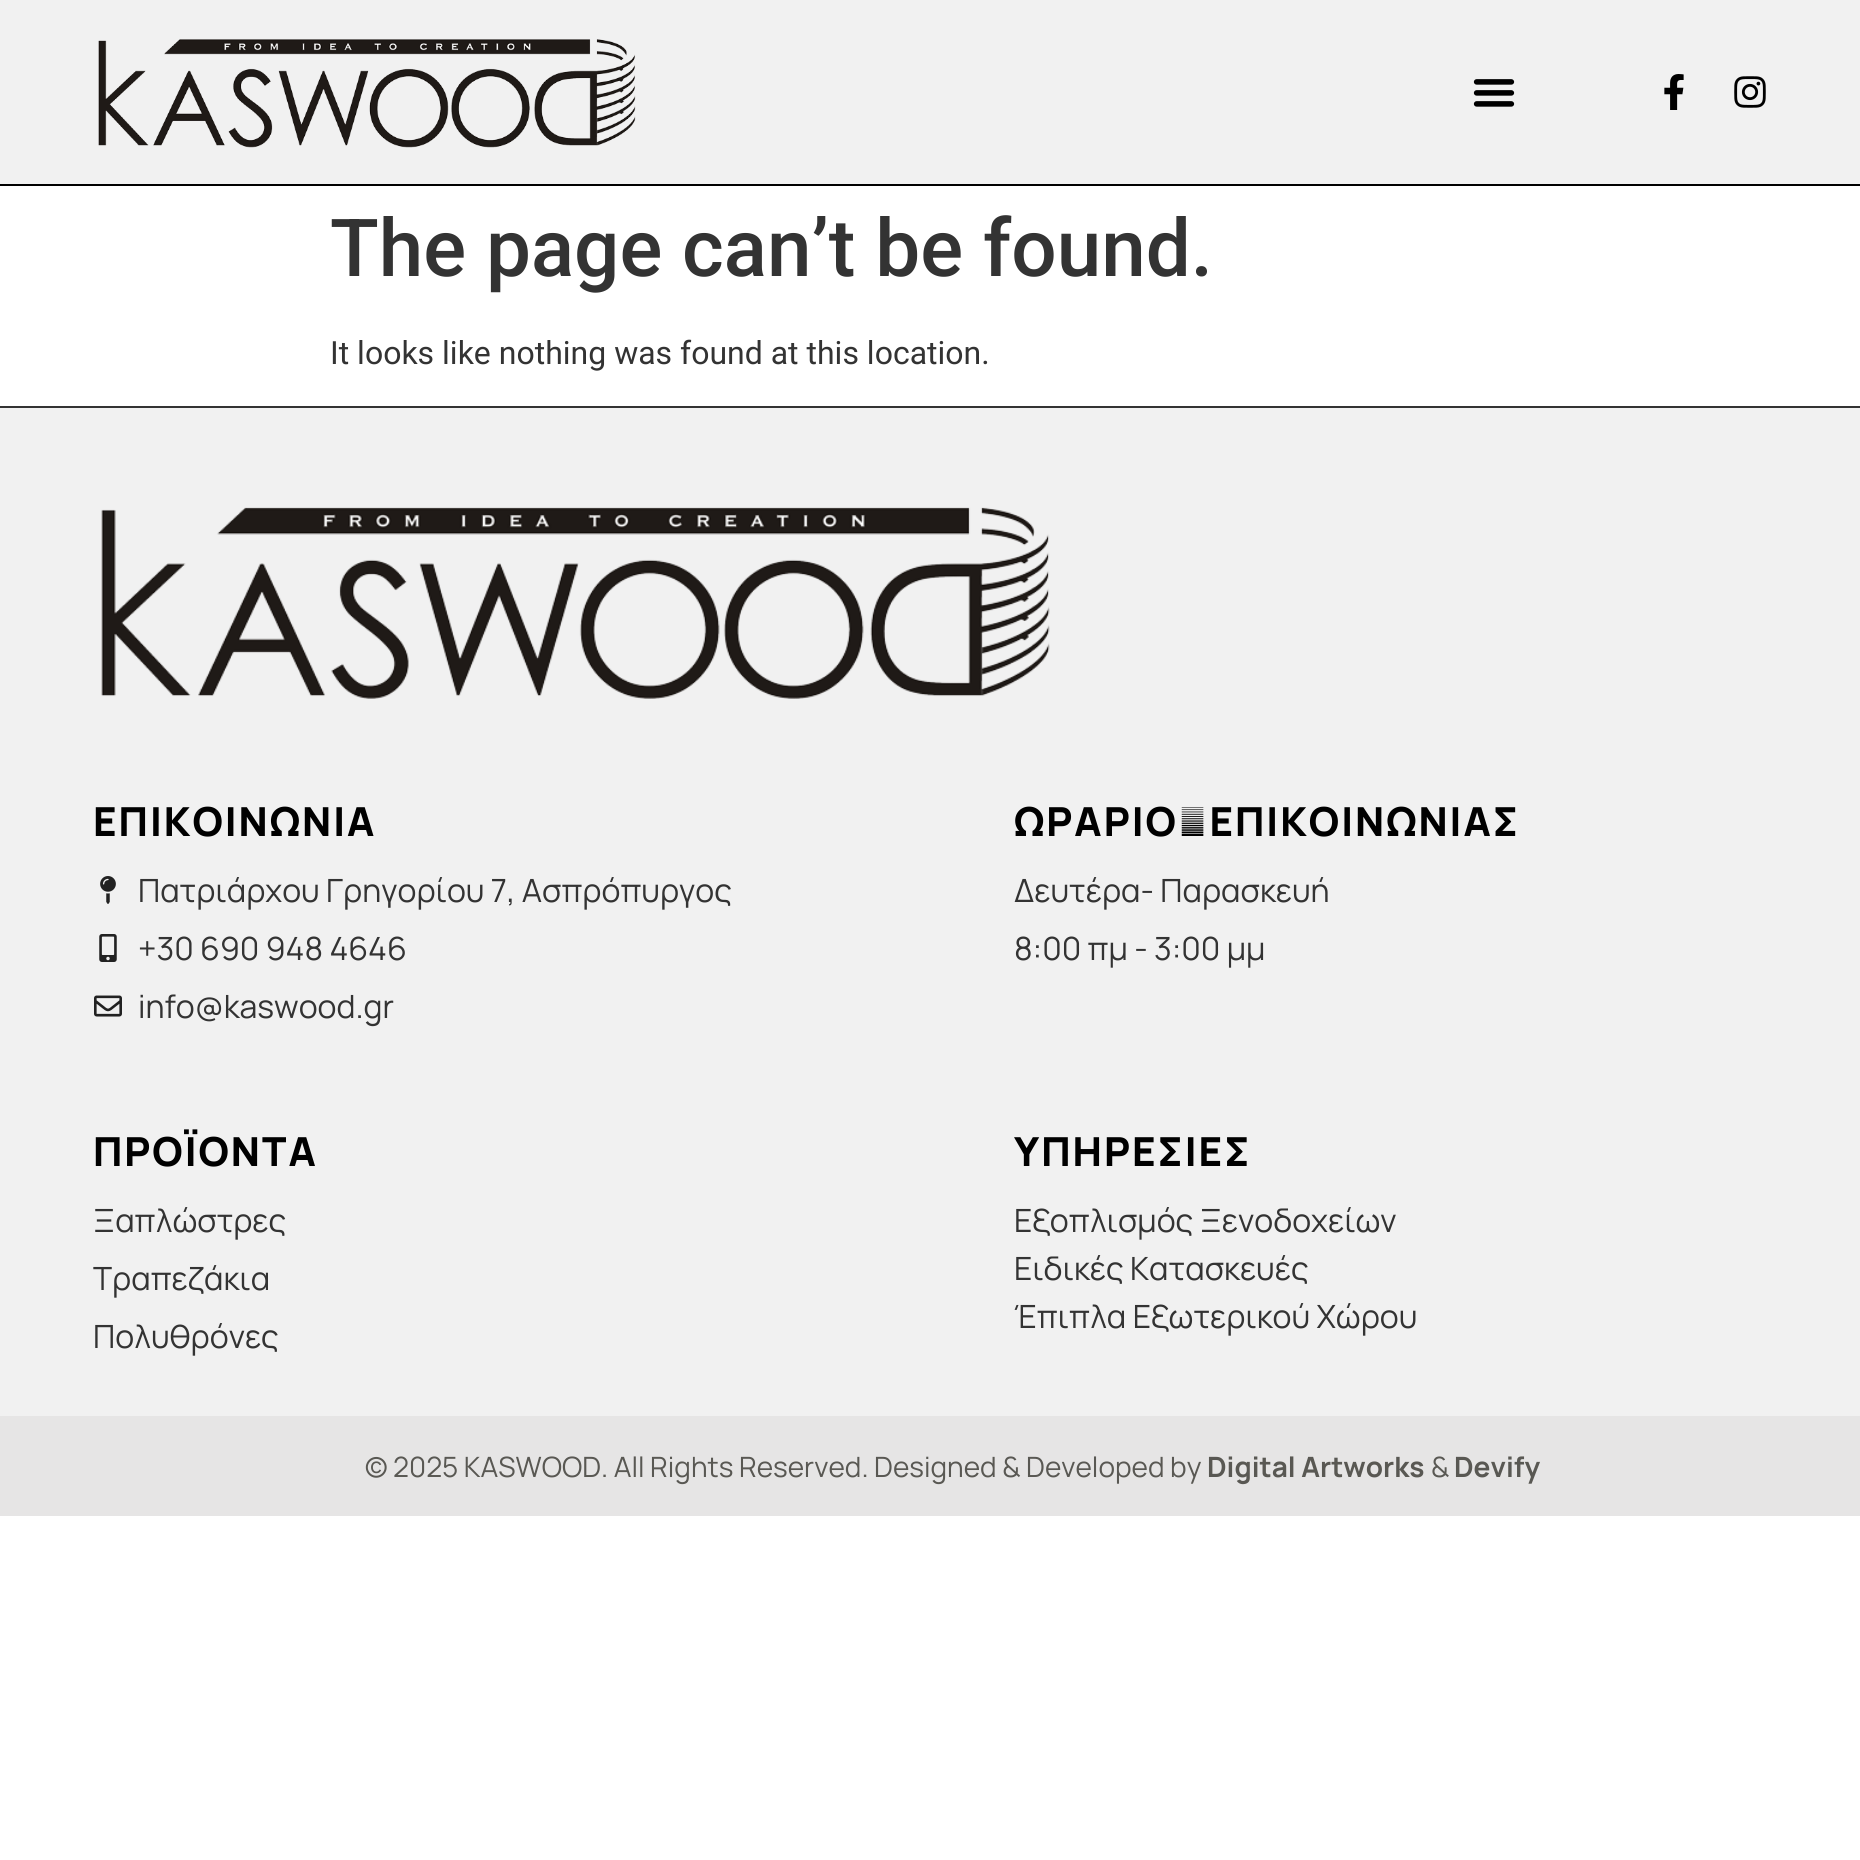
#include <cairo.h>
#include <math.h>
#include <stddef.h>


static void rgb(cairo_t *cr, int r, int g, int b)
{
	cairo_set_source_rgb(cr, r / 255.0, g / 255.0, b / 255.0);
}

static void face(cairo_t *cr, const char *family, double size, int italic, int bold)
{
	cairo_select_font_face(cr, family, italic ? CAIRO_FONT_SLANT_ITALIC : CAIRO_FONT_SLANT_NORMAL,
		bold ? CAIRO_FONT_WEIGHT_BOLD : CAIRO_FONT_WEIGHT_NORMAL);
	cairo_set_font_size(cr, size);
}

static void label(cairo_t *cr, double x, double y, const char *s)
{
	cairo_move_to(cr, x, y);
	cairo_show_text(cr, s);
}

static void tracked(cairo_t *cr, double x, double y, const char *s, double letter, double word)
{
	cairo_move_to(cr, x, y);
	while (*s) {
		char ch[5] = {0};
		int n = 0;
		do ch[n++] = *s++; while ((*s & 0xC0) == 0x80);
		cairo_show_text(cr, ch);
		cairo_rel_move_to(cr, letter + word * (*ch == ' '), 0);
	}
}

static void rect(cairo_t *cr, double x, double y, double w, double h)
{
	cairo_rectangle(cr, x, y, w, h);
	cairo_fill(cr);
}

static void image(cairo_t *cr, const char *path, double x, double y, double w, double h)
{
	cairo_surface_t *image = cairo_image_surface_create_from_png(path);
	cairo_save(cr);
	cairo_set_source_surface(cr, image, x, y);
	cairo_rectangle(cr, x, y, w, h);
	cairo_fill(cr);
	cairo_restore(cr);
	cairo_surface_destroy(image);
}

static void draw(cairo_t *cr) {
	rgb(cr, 255, 255, 255);
	cairo_paint(cr);
	rgb(cr, 241, 241, 241);
	rect(cr, 0, 0, 1860, 184);
	rgb(cr, 0, 0, 0);
	rect(cr, 0, 184, 1860, 2);
	image(cr, "image0.png", 98, 39, 538, 109);
	image(cr, "image1.png", 1473, 79, 42, 28);
	image(cr, "image2.png", 1664, 74, 20, 36);
	image(cr, "image3.png", 1734, 76, 32, 32);
	face(cr, "Roboto Medium", 80, 0, 0);
	rgb(cr, 51, 51, 51);
	label(cr, 330, 276, "The page can’t be found.");
	face(cr, "Roboto", 32, 0, 0);
	label(cr, 330, 364, "It looks like nothing was found at this location.");
	rgb(cr, 241, 241, 241);
	rect(cr, 0, 408, 1860, 1008);
	rgb(cr, 51, 51, 51);
	rect(cr, 0, 406, 1860, 2);
	image(cr, "image4.png", 101, 507, 949, 192);
	face(cr, "Manrope ExtraBold", 40, 0, 0);
	rgb(cr, 0, 0, 0);
	tracked(cr, 93, 836, "ΕΠΙΚΟΙΝΩΝΙΑ", 2, 0);
	image(cr, "image5.png", 100, 876, 16, 28);
	face(cr, "Manrope", 32, 0, 0);
	rgb(cr, 51, 51, 51);
	label(cr, 138, 902, "Πατριάρχου Γρηγορίου 7, Ασπρόπυργος");
	image(cr, "image6.png", 99, 934, 18, 28);
	label(cr, 138, 960, "+30 690 948 4646");
	image(cr, "image7.png", 94, 995, 28, 22);
	label(cr, 138, 1018, "info@kaswood.gr");
	face(cr, "Manrope ExtraBold", 40, 0, 0);
	rgb(cr, 0, 0, 0);
	tracked(cr, 1014, 836, "ΩΡΑΡΙΟ ΕΠΙΚΟΙΝΩΝΙΑΣ", 2, 0);
	face(cr, "Manrope", 32, 0, 0);
	rgb(cr, 51, 51, 51);
	label(cr, 1014, 902, "Δευτέρα- Παρασκευή");
	label(cr, 1014, 960, "8:00 πμ - 3:00 μμ");
	face(cr, "Manrope ExtraBold", 40, 0, 0);
	rgb(cr, 0, 0, 0);
	tracked(cr, 93, 1166, "ΠΡΟΪΟΝΤΑ", 2, 0);
	face(cr, "Manrope", 32, 0, 0);
	rgb(cr, 51, 51, 51);
	label(cr, 93, 1232, "Ξαπλώστρες");
	label(cr, 93, 1290, "Τραπεζάκια");
	label(cr, 93, 1348, "Πολυθρόνες");
	face(cr, "Manrope ExtraBold", 40, 0, 0);
	rgb(cr, 0, 0, 0);
	tracked(cr, 1014, 1166, "ΥΠΗΡΕΣΙΕΣ", 2, 0);
	face(cr, "Manrope", 32, 0, 0);
	rgb(cr, 51, 51, 51);
	label(cr, 1014, 1232, "Εξοπλισμός Ξενοδοχείων");
	label(cr, 1014, 1280, "Ειδικές Κατασκευές");
	label(cr, 1014, 1328, "Έπιπλα Εξωτερικού Χώρου");
	rgb(cr, 230, 229, 229);
	rect(cr, 0, 1416, 1860, 100);
	face(cr, "Manrope", 28, 0, 0);
	rgb(cr, 89, 88, 83);
	label(cr, 365, 1477, "© 2025 KASWOOD. All Rights Reserved. Designed & Developed by");
	face(cr, "Manrope", 28, 0, 1);
	label(cr, 1207, 1477, "Digital Artworks");
	face(cr, "Manrope", 28, 0, 0);
	label(cr, 1431, 1477, "&");
	face(cr, "Manrope", 28, 0, 1);
	label(cr, 1454, 1477, "Devify");
}

int main(void) {
	cairo_surface_t *surface = cairo_image_surface_create(CAIRO_FORMAT_RGB24, 1860, 1860);
	cairo_t *cr = cairo_create(surface);
	cairo_font_options_t *options = cairo_font_options_create();
	cairo_font_options_set_hint_metrics(options, CAIRO_HINT_METRICS_OFF);
	cairo_font_options_set_hint_style(options, CAIRO_HINT_STYLE_NONE);
	cairo_set_font_options(cr, options);
	cairo_set_miter_limit(cr, 4);
	draw(cr);
	cairo_surface_write_to_png(surface, "render.png");
	cairo_font_options_destroy(options);
	cairo_destroy(cr);
	cairo_surface_destroy(surface);
	return 0;
}
